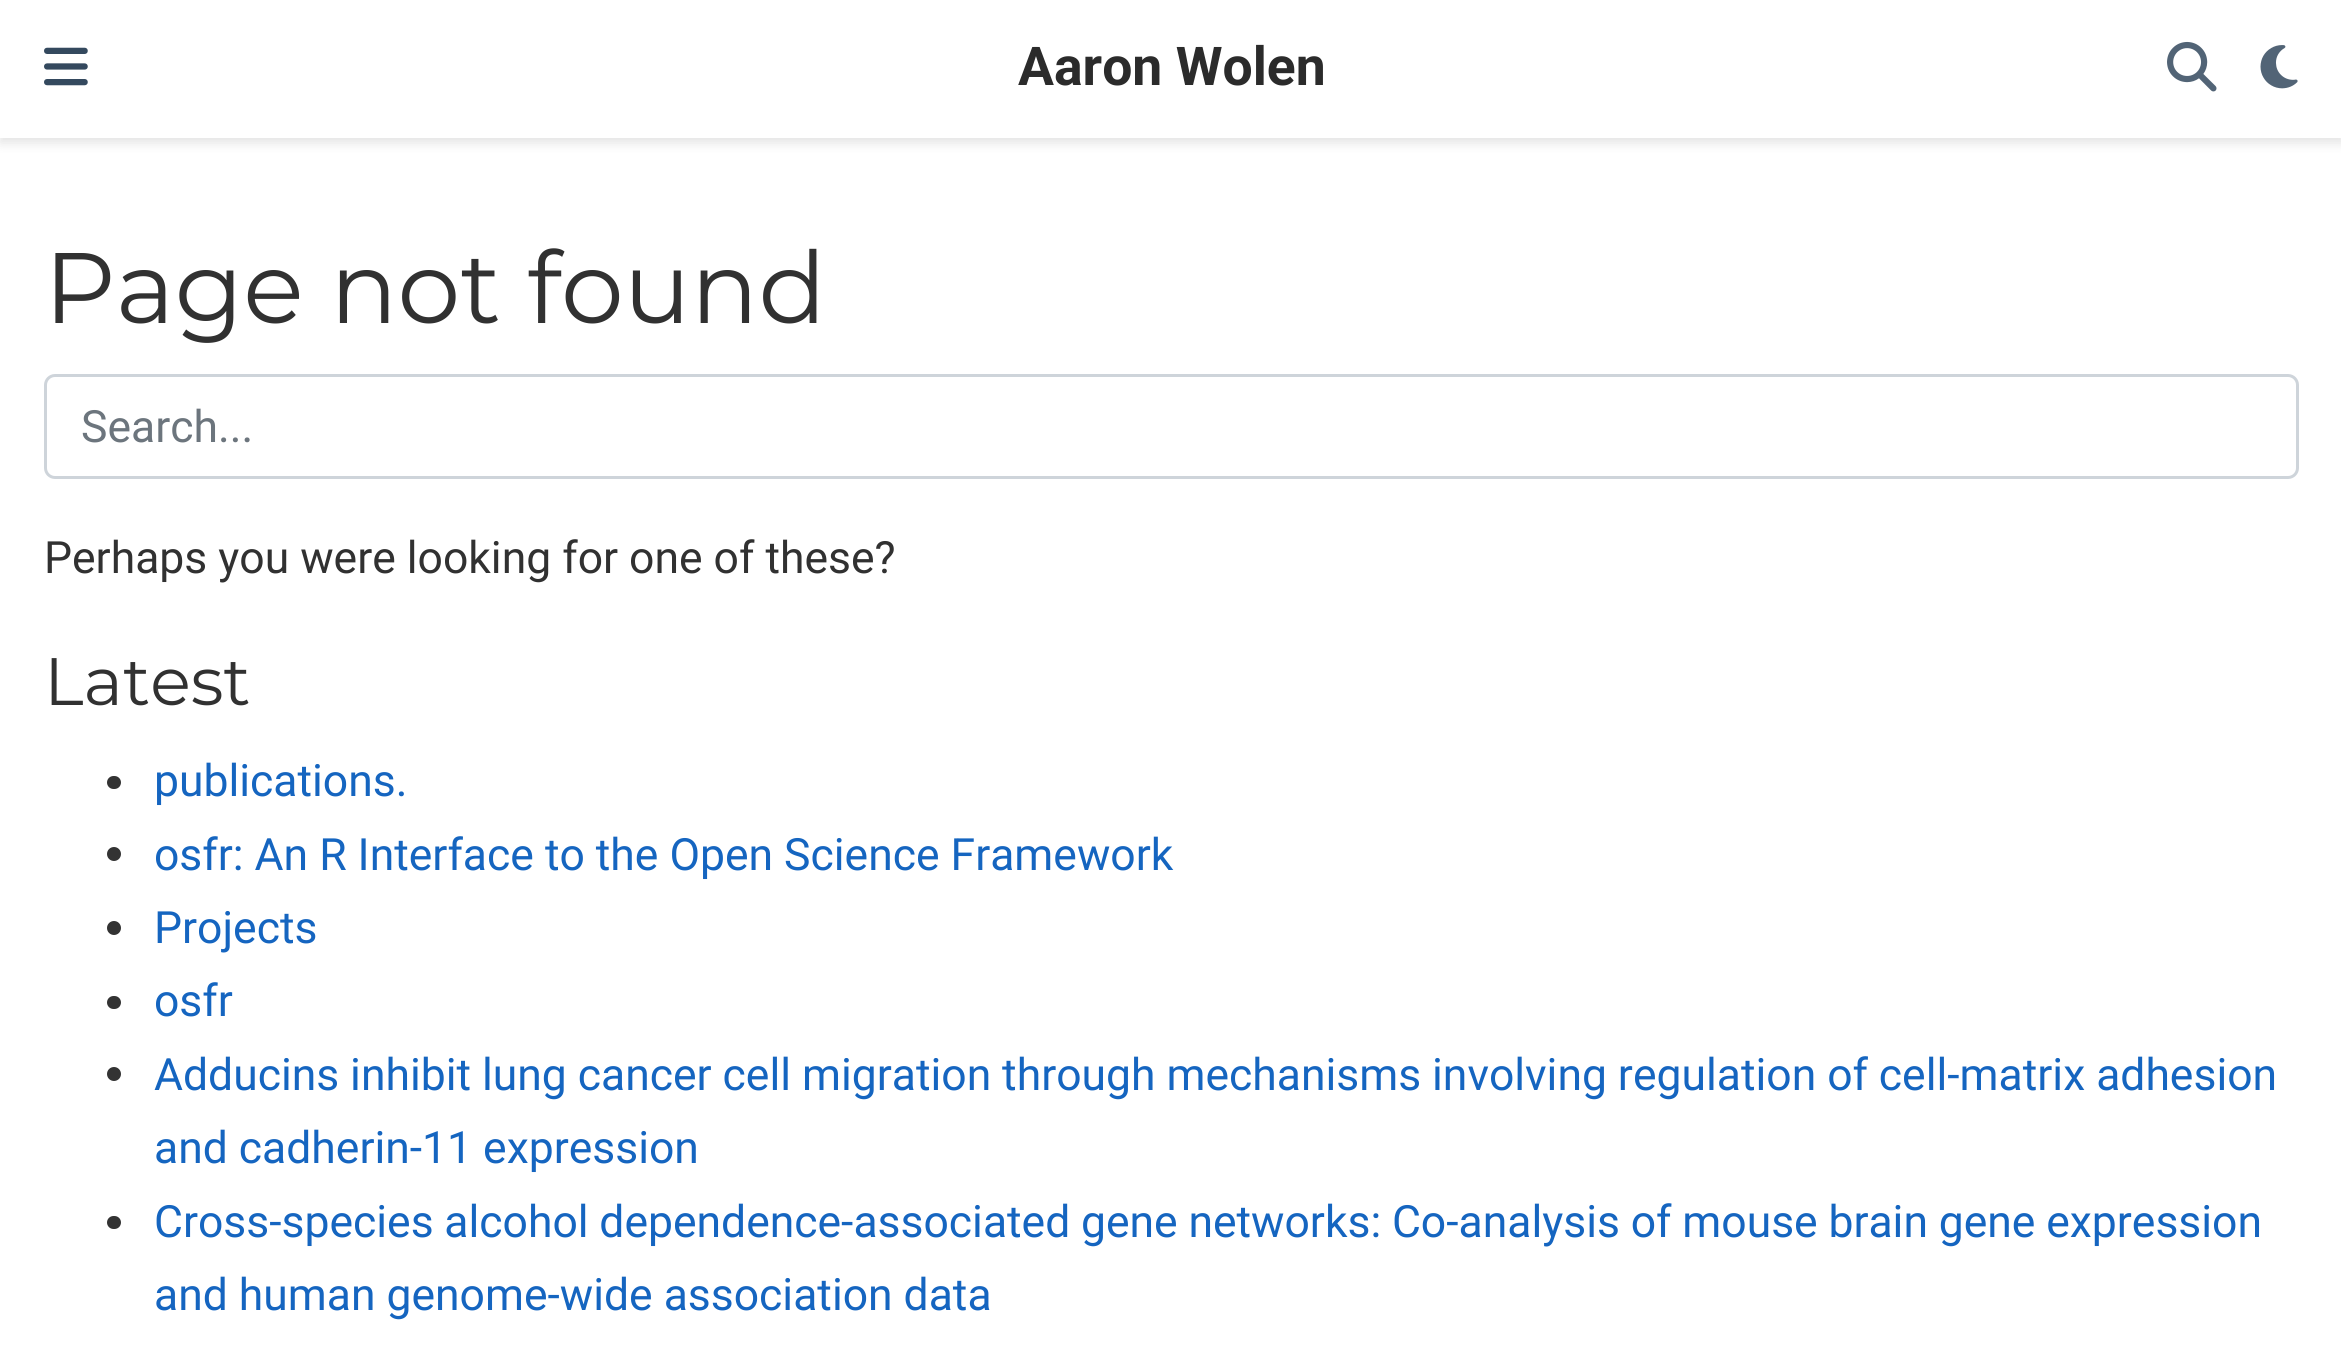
#include <cairo.h>
#include <math.h>
#include <stddef.h>


static void rgb(cairo_t *cr, int r, int g, int b)
{
	cairo_set_source_rgb(cr, r / 255.0, g / 255.0, b / 255.0);
}

static void face(cairo_t *cr, const char *family, double size, int italic, int bold)
{
	cairo_select_font_face(cr, family, italic ? CAIRO_FONT_SLANT_ITALIC : CAIRO_FONT_SLANT_NORMAL,
		bold ? CAIRO_FONT_WEIGHT_BOLD : CAIRO_FONT_WEIGHT_NORMAL);
	cairo_set_font_size(cr, size);
}

static void label(cairo_t *cr, double x, double y, const char *s)
{
	cairo_move_to(cr, x, y);
	cairo_show_text(cr, s);
}

static void tracked(cairo_t *cr, double x, double y, const char *s, double letter, double word)
{
	cairo_move_to(cr, x, y);
	while (*s) {
		char ch[5] = {0};
		int n = 0;
		do ch[n++] = *s++; while ((*s & 0xC0) == 0x80);
		cairo_show_text(cr, ch);
		cairo_rel_move_to(cr, letter + word * (*ch == ' '), 0);
	}
}

static void rect(cairo_t *cr, double x, double y, double w, double h)
{
	cairo_rectangle(cr, x, y, w, h);
	cairo_fill(cr);
}

static void rrect(cairo_t *cr, double x, double y, double w, double h, double r)
{
	cairo_new_sub_path(cr);
	cairo_arc(cr, x + w - r, y + h - r, r, 0, M_PI / 2);
	cairo_arc(cr, x + r, y + h - r, r, M_PI / 2, M_PI);
	cairo_arc(cr, x + r, y + r, r, M_PI, 1.5 * M_PI);
	cairo_arc(cr, x + w - r, y + r, r, 1.5 * M_PI, 2 * M_PI);
	cairo_close_path(cr);
}

static void soft_shadow(cairo_t *cr, double x, double y, double w, double h, double r, double blur, double alpha)
{
	cairo_push_group_with_content(cr, CAIRO_CONTENT_ALPHA);
	cairo_set_operator(cr, CAIRO_OPERATOR_SOURCE);
	for (int i = 15; i >= -15 && fmin(w, h) + blur * i / 3 > 0; i -= 2) {
		double e = blur * i / 6;
		cairo_set_source_rgba(cr, 0, 0, 0, alpha * erfc((i - 1) / 8.5) / 2);
		rrect(cr, x - e, y - e, w + 2 * e, h + 2 * e, fmax(0, fmin(r + e + blur * .6, fmin(w, h) / 2 + e)));
		cairo_fill(cr);
	}
	cairo_pattern_t *soft = cairo_pop_group(cr);
	cairo_mask(cr, soft);
	cairo_pattern_destroy(soft);
}

static void image(cairo_t *cr, const char *path, double x, double y, double w, double h)
{
	cairo_surface_t *image = cairo_image_surface_create_from_png(path);
	cairo_save(cr);
	cairo_set_source_surface(cr, image, x, y);
	cairo_rectangle(cr, x, y, w, h);
	cairo_fill(cr);
	cairo_restore(cr);
	cairo_surface_destroy(image);
}

static void draw(cairo_t *cr) {
	rgb(cr, 255, 255, 255);
	cairo_paint(cr);
	rgb(cr, 0, 0, 0);
	soft_shadow(cr, 0, 6, 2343, 137, 0, 5.5, 0.11);
	rgb(cr, 255, 255, 255);
	rect(cr, 0, 0, 2341, 138);
	image(cr, "image0.png", 44, 47, 44, 39);
	face(cr, "Roboto", 53.5, 0, 1);
	rgb(cr, 43, 43, 43);
	label(cr, 1018, 85, "Aaron Wolen");
	image(cr, "image1.png", 2167, 41, 50, 51);
	image(cr, "image2.png", 2260, 45, 38, 44);
	face(cr, "Montserrat", 100, 0, 0);
	rgb(cr, 49, 49, 49);
	label(cr, 44, 323, "Page not found");
	rrect(cr, 45.5, 375.5, 2252, 102, 9.5);
	rgb(cr, 206, 212, 218);
	cairo_set_line_width(cr, 3);
	cairo_stroke(cr);
	face(cr, "Roboto", 44.45, 0, 0);
	rgb(cr, 108, 117, 125);
	label(cr, 81, 442, "Search...");
	rgb(cr, 49, 49, 49);
	label(cr, 44, 573, "Perhaps you were looking for one of these?");
	face(cr, "Montserrat", 67, 0, 0);
	label(cr, 44, 705, "Latest");
	rgb(cr, 51, 51, 51);
	rrect(cr, 107, 776, 14, 13, 6.5);
	cairo_fill(cr);
	face(cr, "Roboto", 44.45, 0, 0);
	rgb(cr, 21, 101, 192);
	label(cr, 154, 796, "publications.");
	rgb(cr, 51, 51, 51);
	cairo_new_path(cr);
	cairo_arc(cr, 114, 854, 7, 0, 2 * M_PI);
	cairo_fill(cr);
	rgb(cr, 21, 101, 192);
	label(cr, 154, 870, "osfr: An R Interface to the Open Science Framework");
	rgb(cr, 51, 51, 51);
	cairo_new_path(cr);
	cairo_arc(cr, 114, 928, 7, 0, 2 * M_PI);
	cairo_fill(cr);
	rgb(cr, 21, 101, 192);
	label(cr, 154, 943, "Projects");
	rgb(cr, 51, 51, 51);
	rrect(cr, 107, 996, 14, 13, 6.5);
	cairo_fill(cr);
	rgb(cr, 21, 101, 192);
	label(cr, 154, 1016, "osfr");
	rgb(cr, 51, 51, 51);
	cairo_new_path(cr);
	cairo_arc(cr, 114, 1074, 7, 0, 2 * M_PI);
	cairo_fill(cr);
	rgb(cr, 21, 101, 192);
	tracked(cr, 154, 1090, "Adducins inhibit lung cancer cell migration through mechanisms involving regulation of cell-matrix adhesion", 0, -0.1);
	label(cr, 154, 1163, "and cadherin-11 expression");
	rgb(cr, 51, 51, 51);
	rrect(cr, 107, 1216, 14, 13, 6.5);
	cairo_fill(cr);
	rgb(cr, 21, 101, 192);
	tracked(cr, 154, 1237, "Cross-species alcohol dependence-associated gene networks: Co-analysis of mouse brain gene expression", 0, -0.25);
	label(cr, 154, 1310, "and human genome-wide association data");
}

int main(void) {
	cairo_surface_t *surface = cairo_image_surface_create(CAIRO_FORMAT_RGB24, 2341, 1355);
	cairo_t *cr = cairo_create(surface);
	cairo_font_options_t *options = cairo_font_options_create();
	cairo_font_options_set_hint_metrics(options, CAIRO_HINT_METRICS_OFF);
	cairo_font_options_set_hint_style(options, CAIRO_HINT_STYLE_NONE);
	cairo_set_font_options(cr, options);
	cairo_set_miter_limit(cr, 4);
	draw(cr);
	cairo_surface_write_to_png(surface, "render.png");
	cairo_font_options_destroy(options);
	cairo_destroy(cr);
	cairo_surface_destroy(surface);
	return 0;
}
